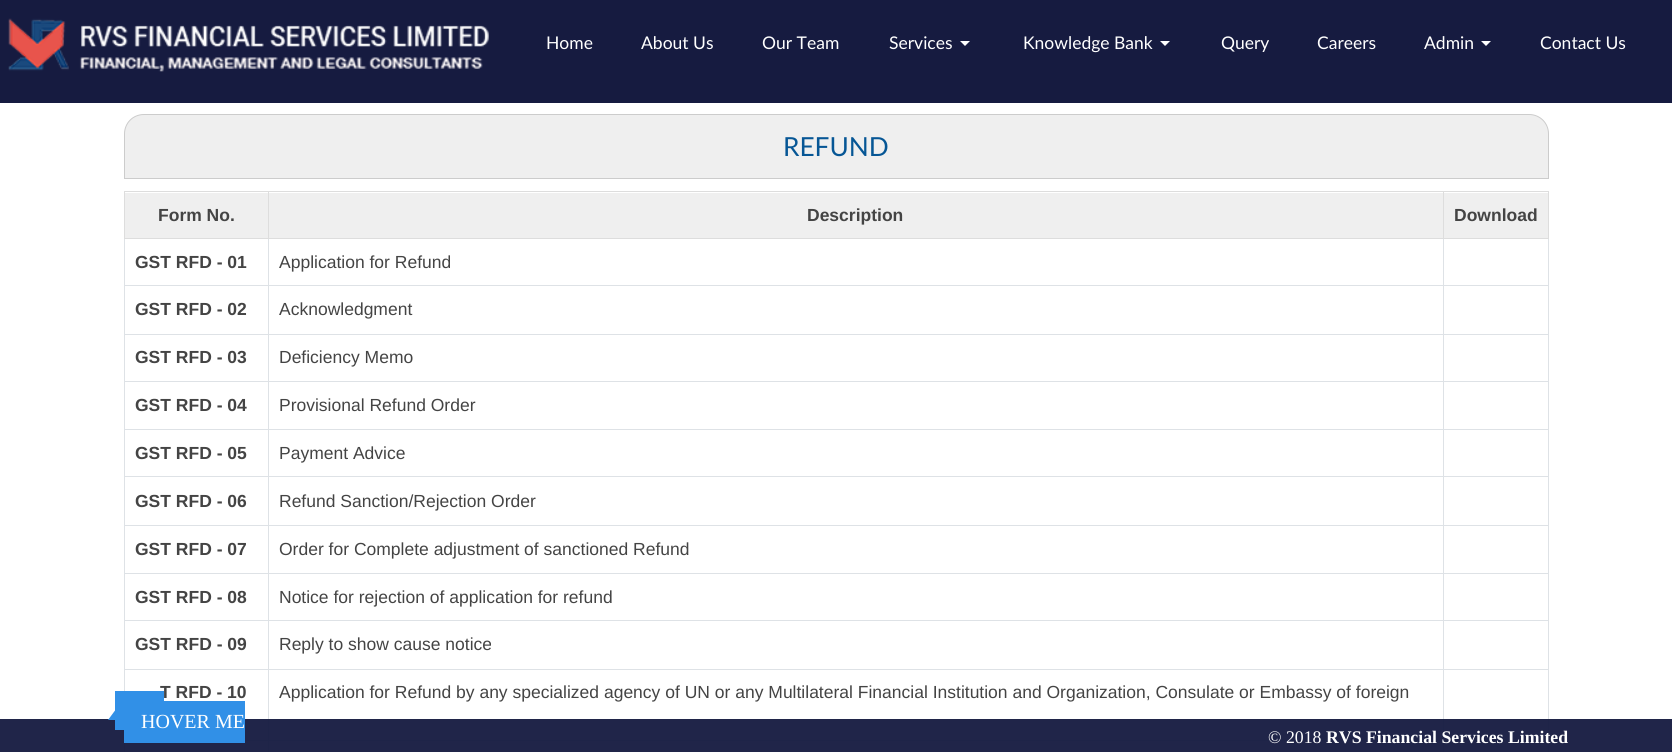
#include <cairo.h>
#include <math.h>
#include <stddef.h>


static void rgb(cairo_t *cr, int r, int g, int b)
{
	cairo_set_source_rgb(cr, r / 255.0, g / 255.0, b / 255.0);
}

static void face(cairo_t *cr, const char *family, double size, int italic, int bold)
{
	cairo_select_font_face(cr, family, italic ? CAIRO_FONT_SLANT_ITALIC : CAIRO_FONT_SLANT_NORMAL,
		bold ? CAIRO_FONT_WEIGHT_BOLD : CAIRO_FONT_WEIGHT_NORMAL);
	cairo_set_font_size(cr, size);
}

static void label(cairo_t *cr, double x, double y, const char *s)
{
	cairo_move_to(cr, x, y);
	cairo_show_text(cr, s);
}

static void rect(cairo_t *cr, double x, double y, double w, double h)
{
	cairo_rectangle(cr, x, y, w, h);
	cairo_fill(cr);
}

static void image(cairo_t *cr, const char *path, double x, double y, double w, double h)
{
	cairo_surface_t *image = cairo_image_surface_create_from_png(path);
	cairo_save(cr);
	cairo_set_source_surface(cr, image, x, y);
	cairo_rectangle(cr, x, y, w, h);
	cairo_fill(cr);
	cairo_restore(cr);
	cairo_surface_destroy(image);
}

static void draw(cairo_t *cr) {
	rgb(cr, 255, 255, 255);
	cairo_paint(cr);
	rgb(cr, 22, 27, 64);
	rect(cr, 0, 0, 1672, 103);
	image(cr, "image0.png", 8, 18, 481, 54);
	face(cr, "Lato", 17.5, 0, 0);
	rgb(cr, 255, 255, 255);
	label(cr, 546, 49, "Home");
	label(cr, 641, 49, "About Us");
	label(cr, 762, 49, "Our Team");
	label(cr, 889, 49, "Services");
	cairo_new_path(cr);
	cairo_move_to(cr, 960, 41);
	cairo_line_to(cr, 970, 41);
	cairo_line_to(cr, 965, 46);
	cairo_close_path(cr);
	cairo_fill(cr);
	label(cr, 1023, 49, "Knowledge Bank");
	cairo_new_path(cr);
	cairo_move_to(cr, 1160, 41);
	cairo_line_to(cr, 1170, 41);
	cairo_line_to(cr, 1165, 46);
	cairo_close_path(cr);
	cairo_fill(cr);
	label(cr, 1221, 49, "Query");
	label(cr, 1317, 49, "Careers");
	label(cr, 1424, 49, "Admin");
	cairo_new_path(cr);
	cairo_move_to(cr, 1481, 41);
	cairo_line_to(cr, 1491, 41);
	cairo_line_to(cr, 1486, 46);
	cairo_close_path(cr);
	cairo_fill(cr);
	label(cr, 1540, 49, "Contact Us");
	rgb(cr, 239, 239, 239);
	cairo_new_path(cr);
	cairo_move_to(cr, 144, 114.5);
	cairo_line_to(cr, 1529, 114.5);
	cairo_curve_to(cr, 1540, 114.5, 1548.5, 123, 1548.5, 134);
	cairo_line_to(cr, 1548.5, 178.5);
	cairo_line_to(cr, 124.5, 178.5);
	cairo_line_to(cr, 124.5, 134);
	cairo_curve_to(cr, 124.5, 123, 133, 114.5, 144, 114.5);
	cairo_close_path(cr);
	cairo_fill_preserve(cr);
	rgb(cr, 204, 204, 204);
	cairo_set_line_width(cr, 1);
	cairo_stroke(cr);
	face(cr, "Lato", 26.25, 0, 0);
	rgb(cr, 6, 86, 149);
	label(cr, 783, 156, "REFUND");
	rgb(cr, 222, 226, 230);
	rect(cr, 1548, 239, 1, 513);
	rect(cr, 124, 239, 1, 513);
	rgb(cr, 239, 239, 239);
	rect(cr, 125, 193, 143, 45);
	rgb(cr, 221, 221, 221);
	rect(cr, 1443, 191, 106, 1);
	rect(cr, 1548, 191, 1, 48);
	rgb(cr, 222, 226, 230);
	rect(cr, 1443, 285, 106, 1);
	rect(cr, 1443, 334, 106, 1);
	rect(cr, 1443, 381, 106, 1);
	rect(cr, 1443, 429, 106, 1);
	rect(cr, 1443, 476, 106, 1);
	rect(cr, 1443, 525, 106, 1);
	rect(cr, 1443, 573, 106, 1);
	rect(cr, 1443, 620, 106, 1);
	rect(cr, 1443, 669, 106, 1);
	rect(cr, 1443, 740, 106, 1);
	rect(cr, 1443, 740, 1, 12);
	rect(cr, 268, 740, 1176, 1);
	rect(cr, 1443, 669, 1, 72);
	rect(cr, 268, 669, 1176, 1);
	rect(cr, 1443, 620, 1, 50);
	rect(cr, 268, 620, 1176, 1);
	rect(cr, 1443, 573, 1, 48);
	rect(cr, 268, 573, 1176, 1);
	rect(cr, 1443, 525, 1, 49);
	rect(cr, 268, 525, 1176, 1);
	rect(cr, 1443, 476, 1, 50);
	rect(cr, 268, 476, 1176, 1);
	rect(cr, 1443, 429, 1, 49);
	rect(cr, 268, 429, 1176, 1);
	rect(cr, 1443, 381, 1, 49);
	rect(cr, 268, 381, 1176, 1);
	rect(cr, 1443, 334, 1, 49);
	rect(cr, 268, 334, 1176, 1);
	rect(cr, 1443, 285, 1, 50);
	rect(cr, 268, 285, 1176, 1);
	rect(cr, 1443, 238, 1, 48);
	rgb(cr, 221, 221, 221);
	rect(cr, 1443, 238, 106, 1);
	rect(cr, 1443, 191, 1, 48);
	rect(cr, 268, 191, 1176, 1);
	rgb(cr, 222, 226, 230);
	rect(cr, 268, 740, 1, 12);
	rect(cr, 245, 740, 24, 1);
	rect(cr, 268, 669, 1, 72);
	rect(cr, 124, 669, 145, 1);
	rect(cr, 268, 620, 1, 50);
	rect(cr, 124, 620, 145, 1);
	rect(cr, 268, 573, 1, 48);
	rect(cr, 124, 573, 145, 1);
	rect(cr, 268, 525, 1, 49);
	rect(cr, 124, 525, 145, 1);
	rect(cr, 268, 476, 1, 50);
	rect(cr, 124, 476, 145, 1);
	rect(cr, 268, 429, 1, 49);
	rect(cr, 124, 429, 145, 1);
	rect(cr, 268, 381, 1, 49);
	rect(cr, 124, 381, 145, 1);
	rect(cr, 268, 334, 1, 49);
	rect(cr, 124, 334, 145, 1);
	rect(cr, 268, 285, 1, 50);
	rect(cr, 124, 285, 145, 1);
	rect(cr, 268, 238, 1, 48);
	rgb(cr, 221, 221, 221);
	rect(cr, 268, 238, 1176, 1);
	rect(cr, 268, 191, 1, 48);
	rect(cr, 124, 191, 145, 1);
	rect(cr, 124, 238, 145, 1);
	rect(cr, 124, 191, 1, 48);
	face(cr, "Liberation Sans", 17.5, 0, 1);
	rgb(cr, 68, 68, 68);
	label(cr, 158, 221, "Form No.");
	rgb(cr, 239, 239, 239);
	rect(cr, 269, 193, 1174, 45);
	rgb(cr, 68, 68, 68);
	label(cr, 807, 221, "Description");
	rgb(cr, 239, 239, 239);
	rect(cr, 1444, 193, 104, 45);
	rgb(cr, 68, 68, 68);
	label(cr, 1454, 221, "Download");
	label(cr, 135, 268, "GST RFD - 01");
	face(cr, "Liberation Sans", 17.5, 0, 0);
	label(cr, 279, 268, "Application for Refund");
	face(cr, "Liberation Sans", 17.5, 0, 1);
	label(cr, 135, 315, "GST RFD - 02");
	face(cr, "Liberation Sans", 17.5, 0, 0);
	label(cr, 279, 315, "Acknowledgment");
	face(cr, "Liberation Sans", 17.5, 0, 1);
	label(cr, 135, 363, "GST RFD - 03");
	face(cr, "Liberation Sans", 17.5, 0, 0);
	label(cr, 279, 363, "Deficiency Memo");
	face(cr, "Liberation Sans", 17.5, 0, 1);
	label(cr, 135, 411, "GST RFD - 04");
	face(cr, "Liberation Sans", 17.5, 0, 0);
	label(cr, 279, 411, "Provisional Refund Order");
	face(cr, "Liberation Sans", 17.5, 0, 1);
	label(cr, 135, 459, "GST RFD - 05");
	face(cr, "Liberation Sans", 17.5, 0, 0);
	label(cr, 279, 459, "Payment Advice");
	face(cr, "Liberation Sans", 17.5, 0, 1);
	label(cr, 135, 507, "GST RFD - 06");
	face(cr, "Liberation Sans", 17.5, 0, 0);
	label(cr, 279, 507, "Refund Sanction/Rejection Order");
	face(cr, "Liberation Sans", 17.5, 0, 1);
	label(cr, 135, 555, "GST RFD - 07");
	face(cr, "Liberation Sans", 17.5, 0, 0);
	label(cr, 279, 555, "Order for Complete adjustment of sanctioned Refund");
	face(cr, "Liberation Sans", 17.5, 0, 1);
	label(cr, 135, 603, "GST RFD - 08");
	face(cr, "Liberation Sans", 17.5, 0, 0);
	label(cr, 279, 603, "Notice for rejection of application for refund");
	face(cr, "Liberation Sans", 17.5, 0, 1);
	label(cr, 135, 650, "GST RFD - 09");
	face(cr, "Liberation Sans", 17.5, 0, 0);
	label(cr, 279, 650, "Reply to show cause notice");
	face(cr, "Liberation Sans", 17.5, 0, 1);
	label(cr, 160, 698, "T RFD - 10");
	face(cr, "Liberation Sans", 17.5, 0, 0);
	label(cr, 279, 698, "Application for Refund by any specialized agency of UN or any Multilateral Financial Institution and Organization, Consulate or Embassy of foreign");
	cairo_set_source_rgba(cr, 0.086, 0.106, 0.251, 0.95);
	rect(cr, 0, 719, 1672, 33);
	rgb(cr, 49, 144, 231);
	rect(cr, 124, 701, 121, 42);
	rect(cr, 115, 691, 49, 39);
	cairo_new_path(cr);
	cairo_move_to(cr, 122, 701);
	cairo_line_to(cr, 153, 701);
	cairo_line_to(cr, 139, 720);
	cairo_line_to(cr, 108, 720);
	cairo_close_path(cr);
	cairo_fill(cr);
	face(cr, "Liberation Serif", 20, 0, 0);
	rgb(cr, 255, 255, 255);
	label(cr, 141, 728, "HOVER ME");
	face(cr, "Liberation Serif", 17.75, 0, 0);
	label(cr, 1268, 743, "© 2018");
	face(cr, "Liberation Serif", 17.75, 0, 1);
	label(cr, 1326, 743, "RVS Financial Services Limited");
}

int main(void) {
	cairo_surface_t *surface = cairo_image_surface_create(CAIRO_FORMAT_RGB24, 1672, 752);
	cairo_t *cr = cairo_create(surface);
	cairo_font_options_t *options = cairo_font_options_create();
	cairo_font_options_set_hint_metrics(options, CAIRO_HINT_METRICS_OFF);
	cairo_font_options_set_hint_style(options, CAIRO_HINT_STYLE_NONE);
	cairo_set_font_options(cr, options);
	cairo_set_miter_limit(cr, 4);
	draw(cr);
	cairo_surface_write_to_png(surface, "render.png");
	cairo_font_options_destroy(options);
	cairo_destroy(cr);
	cairo_surface_destroy(surface);
	return 0;
}
